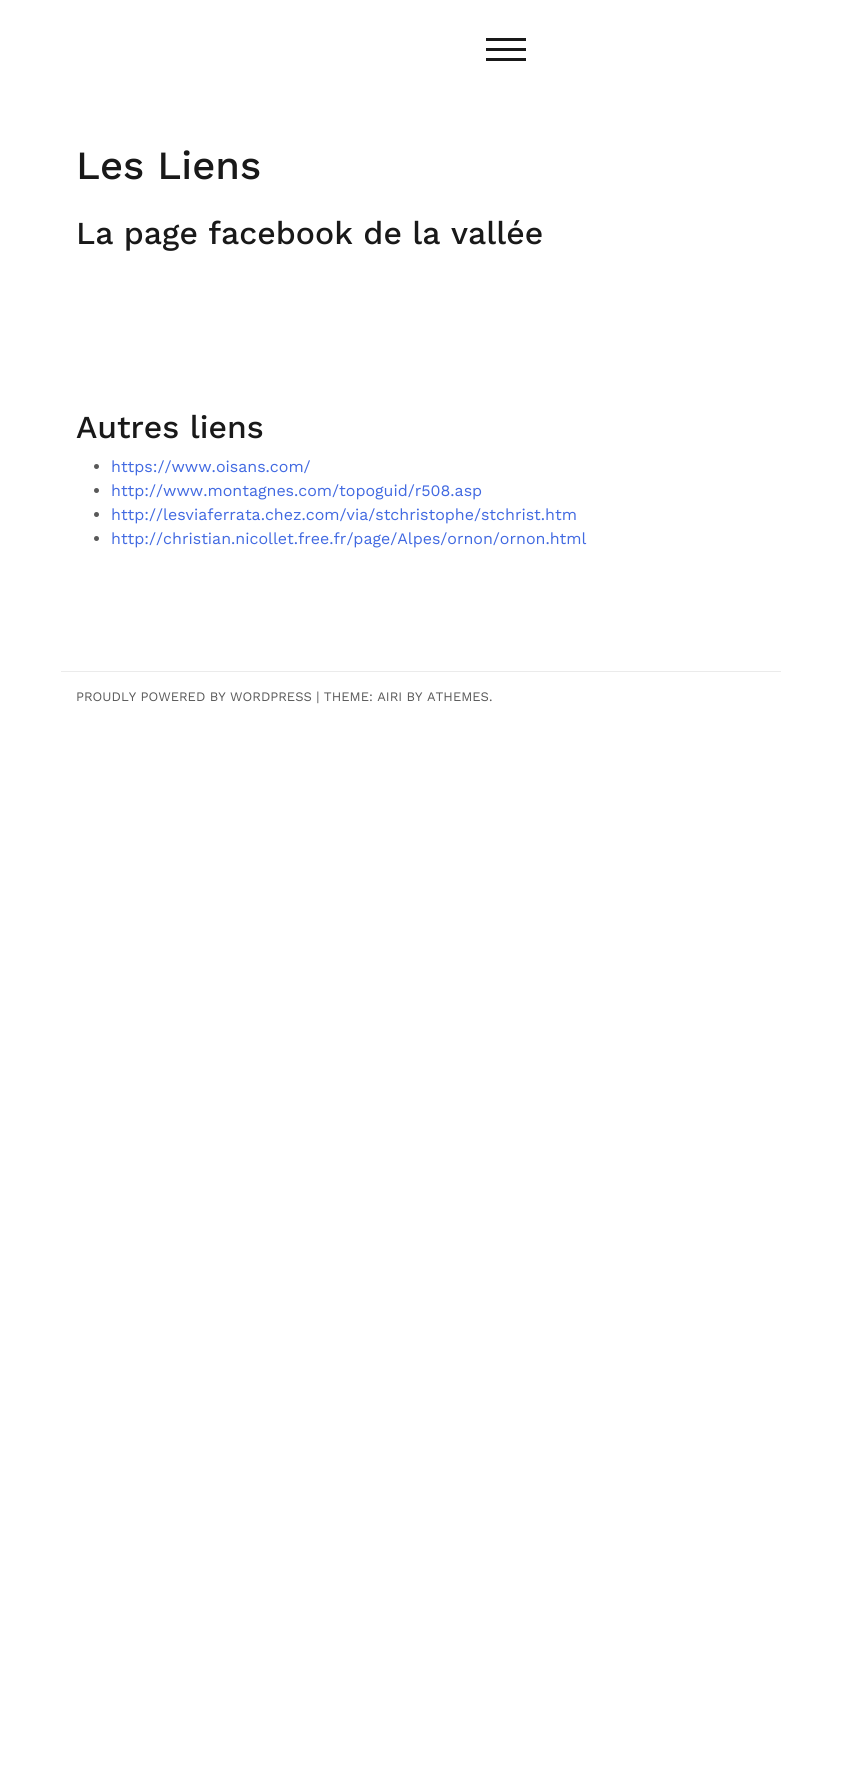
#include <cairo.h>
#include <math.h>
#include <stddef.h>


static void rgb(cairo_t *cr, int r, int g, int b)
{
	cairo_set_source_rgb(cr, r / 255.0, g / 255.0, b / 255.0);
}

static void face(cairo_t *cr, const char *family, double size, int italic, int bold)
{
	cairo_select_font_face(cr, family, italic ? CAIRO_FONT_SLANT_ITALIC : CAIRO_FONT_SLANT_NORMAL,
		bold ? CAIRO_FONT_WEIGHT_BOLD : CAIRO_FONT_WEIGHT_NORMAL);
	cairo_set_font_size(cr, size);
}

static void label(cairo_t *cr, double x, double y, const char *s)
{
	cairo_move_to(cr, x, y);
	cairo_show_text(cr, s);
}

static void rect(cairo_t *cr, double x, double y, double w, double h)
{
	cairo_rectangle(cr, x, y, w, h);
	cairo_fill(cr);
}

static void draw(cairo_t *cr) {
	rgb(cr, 255, 255, 255);
	cairo_paint(cr);
	rgb(cr, 25, 25, 25);
	rect(cr, 486, 48, 40, 3);
	rect(cr, 486, 38, 40, 3);
	rect(cr, 486, 58, 40, 3);
	face(cr, "Work Sans Medium", 40, 0, 0);
	label(cr, 76, 179, "Les Liens");
	face(cr, "Work Sans Medium", 32, 0, 0);
	label(cr, 76, 244, "La page facebook de la vallée");
	label(cr, 76, 438, "Autres liens");
	rgb(cr, 89, 89, 89);
	cairo_new_path(cr);
	cairo_arc(cr, 96.5, 466.5, 2.5, 0, 2 * M_PI);
	cairo_fill(cr);
	face(cr, "Work Sans", 16, 0, 0);
	rgb(cr, 65, 105, 225);
	label(cr, 111, 472, "https://www.oisans.com/");
	rgb(cr, 89, 89, 89);
	cairo_new_path(cr);
	cairo_arc(cr, 96.5, 490.5, 2.5, 0, 2 * M_PI);
	cairo_fill(cr);
	rgb(cr, 65, 105, 225);
	label(cr, 111, 496, "http://www.montagnes.com/topoguid/r508.asp");
	rgb(cr, 89, 89, 89);
	cairo_new_path(cr);
	cairo_arc(cr, 96.5, 514.5, 2.5, 0, 2 * M_PI);
	cairo_fill(cr);
	rgb(cr, 65, 105, 225);
	label(cr, 111, 520, "http://lesviaferrata.chez.com/via/stchristophe/stchrist.htm");
	rgb(cr, 89, 89, 89);
	cairo_new_path(cr);
	cairo_arc(cr, 96.5, 538.5, 2.5, 0, 2 * M_PI);
	cairo_fill(cr);
	rgb(cr, 65, 105, 225);
	label(cr, 111, 544, "http://christian.nicollet.free.fr/page/Alpes/ornon/ornon.html");
	rgb(cr, 235, 235, 235);
	rect(cr, 61, 671, 720, 1);
	face(cr, "Work Sans", 13, 0, 0);
	rgb(cr, 89, 89, 89);
	label(cr, 76, 701, "PROUDLY POWERED BY WORDPRESS | THEME: AIRI BY ATHEMES.");
}

int main(void) {
	cairo_surface_t *surface = cairo_image_surface_create(CAIRO_FORMAT_RGB24, 842, 1792);
	cairo_t *cr = cairo_create(surface);
	cairo_font_options_t *options = cairo_font_options_create();
	cairo_font_options_set_hint_metrics(options, CAIRO_HINT_METRICS_OFF);
	cairo_font_options_set_hint_style(options, CAIRO_HINT_STYLE_NONE);
	cairo_set_font_options(cr, options);
	cairo_set_miter_limit(cr, 4);
	draw(cr);
	cairo_surface_write_to_png(surface, "render.png");
	cairo_font_options_destroy(options);
	cairo_destroy(cr);
	cairo_surface_destroy(surface);
	return 0;
}
